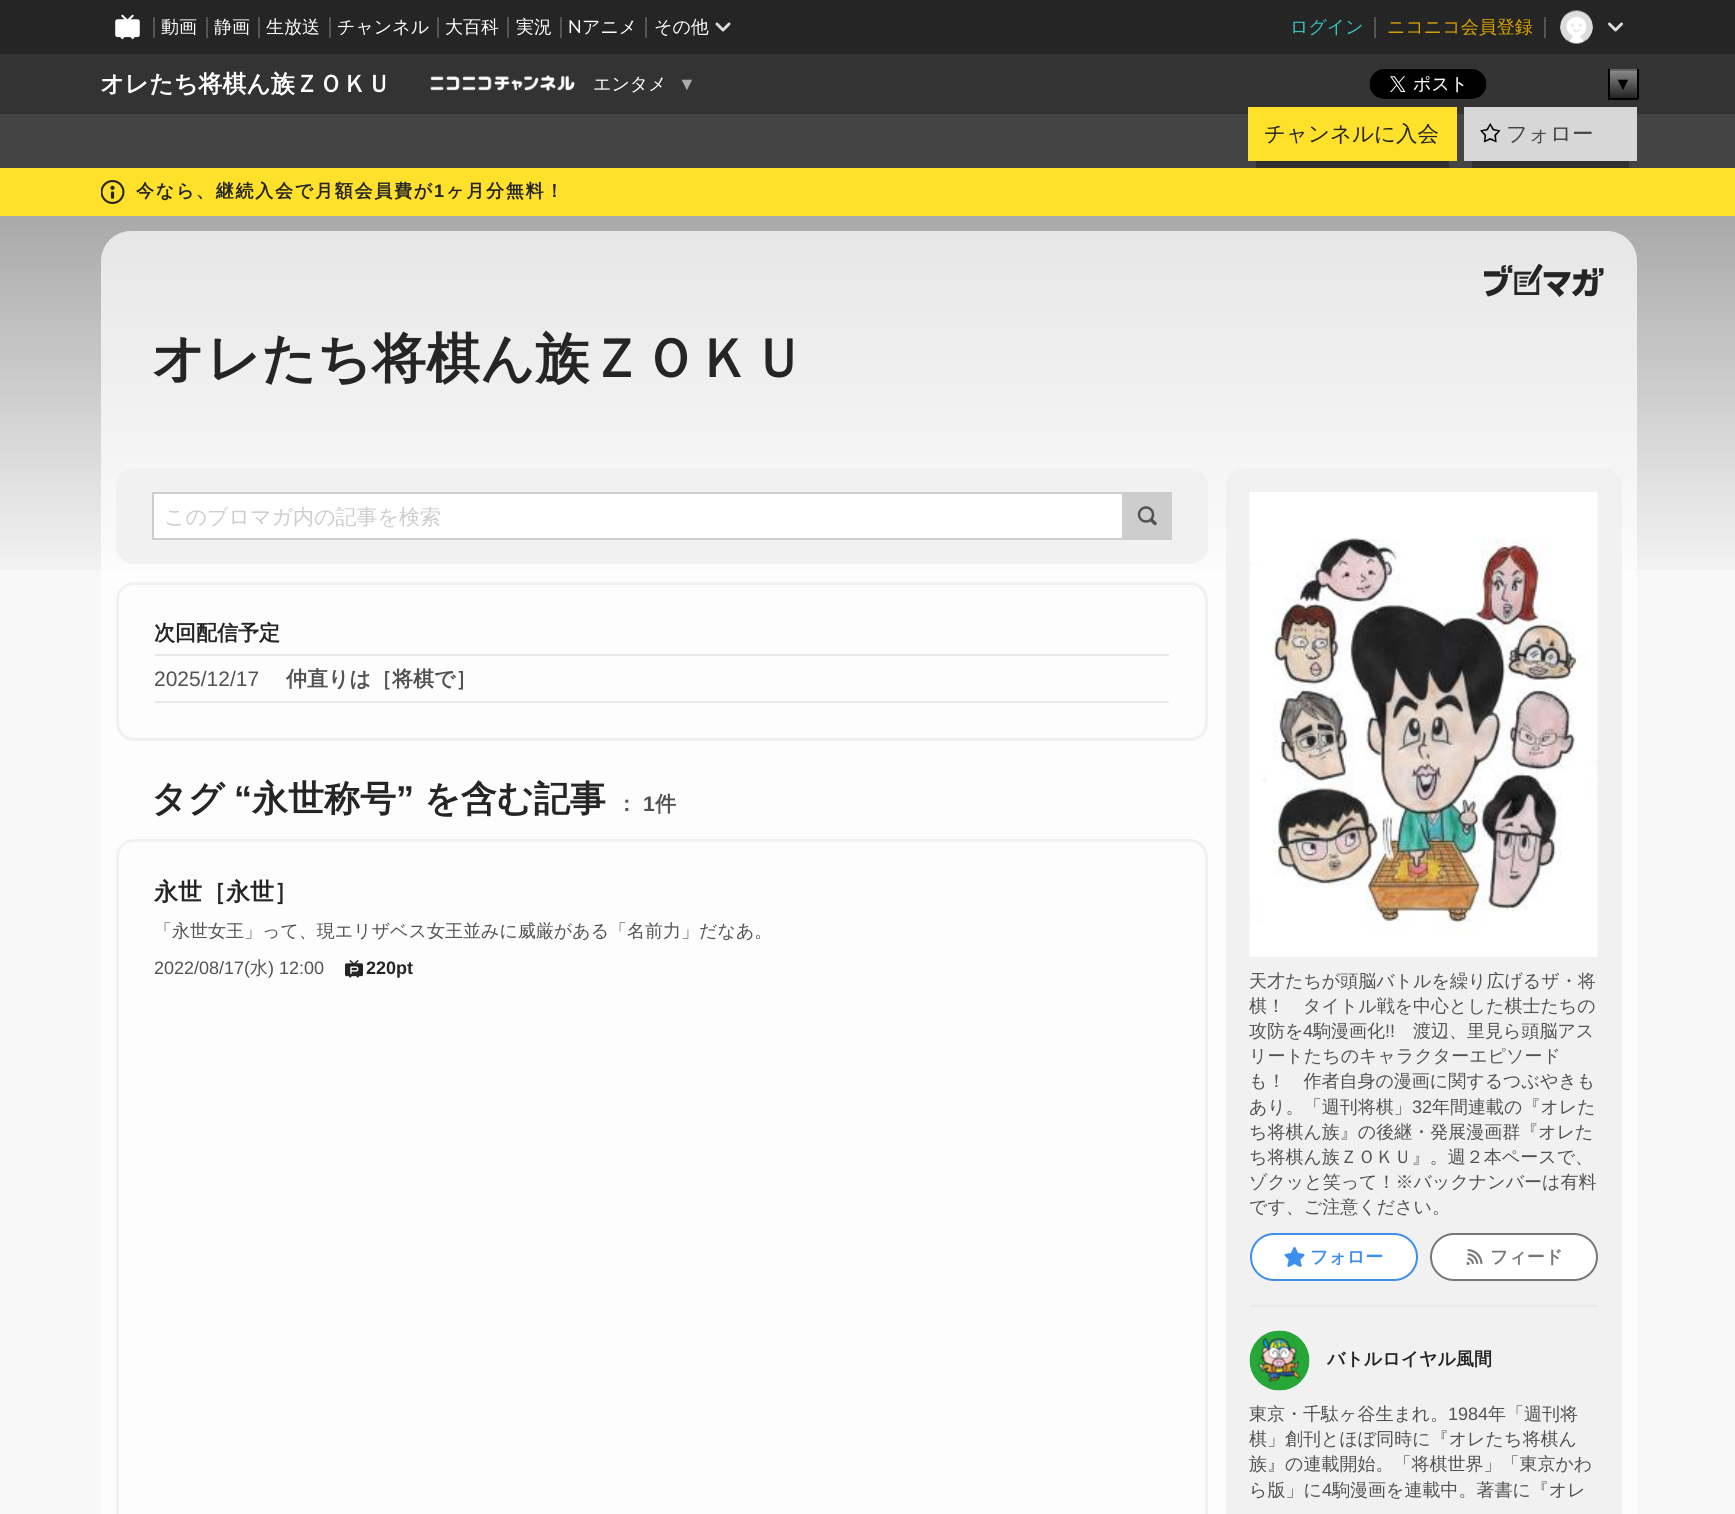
#include <cairo.h>
#include <math.h>
#include <stddef.h>


static void rgb(cairo_t *cr, int r, int g, int b)
{
	cairo_set_source_rgb(cr, r / 255.0, g / 255.0, b / 255.0);
}

static void face(cairo_t *cr, const char *family, double size, int italic, int bold)
{
	cairo_select_font_face(cr, family, italic ? CAIRO_FONT_SLANT_ITALIC : CAIRO_FONT_SLANT_NORMAL,
		bold ? CAIRO_FONT_WEIGHT_BOLD : CAIRO_FONT_WEIGHT_NORMAL);
	cairo_set_font_size(cr, size);
}

static void label(cairo_t *cr, double x, double y, const char *s)
{
	cairo_move_to(cr, x, y);
	cairo_show_text(cr, s);
}

static void tracked(cairo_t *cr, double x, double y, const char *s, double letter, double word)
{
	cairo_move_to(cr, x, y);
	while (*s) {
		char ch[5] = {0};
		int n = 0;
		do ch[n++] = *s++; while ((*s & 0xC0) == 0x80);
		cairo_show_text(cr, ch);
		cairo_rel_move_to(cr, letter + word * (*ch == ' '), 0);
	}
}

static void rect(cairo_t *cr, double x, double y, double w, double h)
{
	cairo_rectangle(cr, x, y, w, h);
	cairo_fill(cr);
}

static void rrect(cairo_t *cr, double x, double y, double w, double h, double r)
{
	cairo_new_sub_path(cr);
	cairo_arc(cr, x + w - r, y + h - r, r, 0, M_PI / 2);
	cairo_arc(cr, x + r, y + h - r, r, M_PI / 2, M_PI);
	cairo_arc(cr, x + r, y + r, r, M_PI, 1.5 * M_PI);
	cairo_arc(cr, x + w - r, y + r, r, 1.5 * M_PI, 2 * M_PI);
	cairo_close_path(cr);
}

static void image(cairo_t *cr, const char *path, double x, double y, double w, double h)
{
	cairo_surface_t *image = cairo_image_surface_create_from_png(path);
	cairo_save(cr);
	cairo_set_source_surface(cr, image, x, y);
	cairo_rectangle(cr, x, y, w, h);
	cairo_fill(cr);
	cairo_restore(cr);
	cairo_surface_destroy(image);
}

static void draw(cairo_t *cr) {
	rgb(cr, 248, 248, 248);
	cairo_paint(cr);
	image(cr, "image0.png", 0, 216, 1735, 354);
	rgb(cr, 37, 37, 37);
	rect(cr, 0, 0, 1735, 54);
	image(cr, "image1.png", 115, 14, 25, 26);
	rgb(cr, 85, 85, 85);
	rect(cr, 153, 17, 2, 21);
	face(cr, "WenQuanYi Zen Hei Medium", 18, 0, 0);
	rgb(cr, 255, 255, 255);
	label(cr, 161, 33, "動画");
	rgb(cr, 85, 85, 85);
	rect(cr, 206, 17, 2, 21);
	rgb(cr, 255, 255, 255);
	label(cr, 214, 33, "静画");
	rgb(cr, 85, 85, 85);
	rect(cr, 258, 17, 2, 21);
	rgb(cr, 255, 255, 255);
	label(cr, 266, 33, "生放送");
	rgb(cr, 85, 85, 85);
	rect(cr, 329, 17, 2, 21);
	rgb(cr, 255, 255, 255);
	label(cr, 337, 33, "チャンネル");
	rgb(cr, 85, 85, 85);
	rect(cr, 437, 17, 2, 21);
	rgb(cr, 255, 255, 255);
	label(cr, 445, 33, "大百科");
	rgb(cr, 85, 85, 85);
	rect(cr, 507, 17, 2, 21);
	rgb(cr, 255, 255, 255);
	label(cr, 516, 33, "実況");
	rgb(cr, 85, 85, 85);
	rect(cr, 560, 17, 2, 21);
	face(cr, "Lato", 18, 0, 0);
	rgb(cr, 255, 255, 255);
	label(cr, 568, 33, "N");
	face(cr, "WenQuanYi Zen Hei Medium", 18, 0, 0);
	label(cr, 582, 33, "アニメ");
	rgb(cr, 85, 85, 85);
	rect(cr, 645, 17, 2, 21);
	rgb(cr, 255, 255, 255);
	label(cr, 654, 33, "その他");
	image(cr, "image2.png", 715, 22, 16, 10);
	rgb(cr, 57, 196, 193);
	label(cr, 1290, 33, "ログイン");
	rgb(cr, 85, 85, 85);
	rect(cr, 1374, 17, 2, 21);
	rgb(cr, 217, 163, 0);
	label(cr, 1387, 33, "ニコニコ会員登録");
	rgb(cr, 85, 85, 85);
	rect(cr, 1544, 17, 2, 21);
	image(cr, "image3.png", 1560, 10, 33, 34);
	image(cr, "image4.png", 1608, 22, 15, 10);
	rgb(cr, 51, 51, 51);
	rect(cr, 0, 54, 1735, 60);
	face(cr, "WenQuanYi Zen Hei", 24, 0, 1);
	rgb(cr, 255, 255, 255);
	label(cr, 100, 92, "オレたち将棋ん族ＺＯＫＵ");
	image(cr, "image5.png", 430, 75, 145, 16);
	face(cr, "WenQuanYi Zen Hei Medium", 18, 0, 0);
	label(cr, 593, 90, "エンタメ");
	face(cr, "Liberation Sans", 18, 0, 0);
	rgb(cr, 170, 170, 170);
	label(cr, 678, 90, "▼");
	image(cr, "image6.png", 1369, 69, 118, 30);
	rgb(cr, 136, 136, 136);
	rect(cr, 1610, 71, 27, 27);
	image(cr, "image7.png", 1610, 72, 27, 26);
	rgb(cr, 102, 102, 102);
	rect(cr, 1608, 69, 30, 2);
	rgb(cr, 0, 0, 0);
	rect(cr, 1637, 69, 2, 30);
	rect(cr, 1608, 98, 30, 2);
	rect(cr, 1608, 69, 2, 30);
	label(cr, 1614, 90, "▼");
	rgb(cr, 68, 68, 68);
	rect(cr, 0, 114, 1735, 54);
	rgb(cr, 48, 48, 48);
	rect(cr, 1256, 161, 193, 7);
	rgb(cr, 255, 224, 43);
	rect(cr, 1248, 107, 209, 54);
	face(cr, "WenQuanYi Zen Hei Medium", 21.5, 0, 0);
	rgb(cr, 37, 37, 37);
	label(cr, 1264, 141, "チャンネルに入会");
	rgb(cr, 48, 48, 48);
	rect(cr, 1472, 161, 157, 7);
	rgb(cr, 215, 215, 215);
	rect(cr, 1464, 107, 173, 54);
	image(cr, "image8.png", 1480, 123, 21, 20);
	rgb(cr, 68, 68, 68);
	label(cr, 1506, 141, "フォロー");
	rgb(cr, 255, 224, 43);
	rect(cr, 0, 168, 1735, 48);
	image(cr, "image9.png", 101, 180, 24, 24);
	face(cr, "WenQuanYi Zen Hei", 18, 0, 1);
	rgb(cr, 37, 37, 37);
	tracked(cr, 136, 197, "今なら、継続入会で月額会員費が", 1.75, 0);
	face(cr, "Liberation Sans", 18, 0, 1);
	tracked(cr, 434, 197, "1", 1.75, 0);
	face(cr, "WenQuanYi Zen Hei", 18, 0, 1);
	tracked(cr, 446, 197, "ヶ月分無料！", 1.75, 0);
	cairo_set_source_rgba(cr, 1, 1, 1, 0.7);
	rrect(cr, 101, 231, 1536, 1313, 30);
	cairo_fill(cr);
	image(cr, "image10.png", 1484, 264, 120, 33);
	face(cr, "WenQuanYi Zen Hei", 54, 0, 1);
	rgb(cr, 37, 37, 37);
	label(cr, 151, 377, "オレたち将棋ん族ＺＯＫＵ");
	rgb(cr, 241, 241, 241);
	rrect(cr, 116, 468, 1092, 96, 18);
	cairo_fill(cr);
	rgb(cr, 255, 255, 255);
	cairo_rectangle(cr, 153, 493, 970, 46);
	cairo_fill_preserve(cr);
	rgb(cr, 205, 205, 205);
	cairo_stroke(cr);
	face(cr, "WenQuanYi Zen Hei Medium", 21, 0, 0);
	label(cr, 164, 524, "このブロマガ内の記事を検索");
	rect(cr, 1124, 492, 48, 48);
	image(cr, "image11.png", 1137, 506, 20, 20);
	rrect(cr, 117.5, 583.5, 1089, 156, 16.5);
	rgb(cr, 241, 241, 241);
	cairo_set_line_width(cr, 3);
	cairo_stroke(cr);
	face(cr, "WenQuanYi Zen Hei", 21, 0, 1);
	rgb(cr, 37, 37, 37);
	label(cr, 154, 640, "次回配信予定");
	rgb(cr, 233, 233, 233);
	rect(cr, 155, 654, 1014, 2);
	rect(cr, 155, 701, 1014, 2);
	face(cr, "Liberation Sans", 21, 0, 0);
	rgb(cr, 82, 82, 82);
	label(cr, 154, 686, "2025/12/17");
	face(cr, "WenQuanYi Zen Hei", 21, 0, 1);
	label(cr, 286, 686, "仲直りは［将棋で］");
	face(cr, "WenQuanYi Zen Hei", 36, 0, 1);
	rgb(cr, 37, 37, 37);
	label(cr, 151, 811, "タグ");
	face(cr, "Liberation Sans", 36, 0, 1);
	label(cr, 234, 811, "“");
	face(cr, "WenQuanYi Zen Hei", 36, 0, 1);
	label(cr, 252, 811, "永世称号");
	face(cr, "Liberation Sans", 36, 0, 1);
	label(cr, 396, 811, "”");
	face(cr, "WenQuanYi Zen Hei", 36, 0, 1);
	label(cr, 424, 811, "を含む記事");
	face(cr, "WenQuanYi Zen Hei", 21, 0, 1);
	rgb(cr, 82, 82, 82);
	label(cr, 616, 811, "：");
	face(cr, "Liberation Sans", 21, 0, 1);
	label(cr, 643, 811, "1");
	face(cr, "WenQuanYi Zen Hei", 21, 0, 1);
	label(cr, 655, 811, "件");
	rrect(cr, 117.5, 840.5, 1089, 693, 16.5);
	rgb(cr, 241, 241, 241);
	cairo_stroke(cr);
	face(cr, "WenQuanYi Zen Hei", 24, 0, 1);
	rgb(cr, 37, 37, 37);
	label(cr, 154, 900, "永世［永世］");
	face(cr, "WenQuanYi Zen Hei Medium", 18, 0, 0);
	rgb(cr, 82, 82, 82);
	label(cr, 154, 937, "「永世女王」って、現エリザベス女王並みに威厳がある「名前力」だなあ。");
	face(cr, "Liberation Sans", 18, 0, 0);
	label(cr, 154, 974, "2022/08/17(");
	face(cr, "WenQuanYi Zen Hei Medium", 18, 0, 0);
	label(cr, 250, 974, "水");
	face(cr, "Liberation Sans", 18, 0, 0);
	label(cr, 268, 974, ") 12:00");
	image(cr, "image12.png", 345, 960, 18, 18);
	face(cr, "Liberation Sans", 18, 0, 1);
	rgb(cr, 37, 37, 37);
	label(cr, 366, 974, "220pt");
	rgb(cr, 241, 241, 241);
	rrect(cr, 1226, 468, 396, 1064, 18);
	cairo_fill(cr);
	image(cr, "image13.png", 1249, 492, 349, 465);
	face(cr, "WenQuanYi Zen Hei Medium", 18, 0, 0);
	rgb(cr, 82, 82, 82);
	label(cr, 1249, 987, "天才たちが頭脳バトルを繰り広げるザ・将");
	label(cr, 1249, 1012, "棋！　タイトル戦を中心とした棋士たちの");
	label(cr, 1249, 1037, "攻防を");
	face(cr, "Liberation Sans", 18, 0, 0);
	label(cr, 1303, 1037, "4");
	face(cr, "WenQuanYi Zen Hei Medium", 18, 0, 0);
	label(cr, 1313, 1037, "駒漫画化");
	face(cr, "Liberation Sans", 18, 0, 0);
	label(cr, 1385, 1037, "!!");
	face(cr, "WenQuanYi Zen Hei Medium", 18, 0, 0);
	label(cr, 1413, 1037, "渡辺、里見ら頭脳アス");
	label(cr, 1249, 1062, "リートたちのキャラクターエピソード");
	label(cr, 1249, 1087, "も！　作者自身の漫画に関するつぶやきも");
	label(cr, 1249, 1113, "あり。「週刊将棋」");
	face(cr, "Liberation Sans", 18, 0, 0);
	label(cr, 1412, 1113, "32");
	face(cr, "WenQuanYi Zen Hei Medium", 18, 0, 0);
	label(cr, 1432, 1113, "年間連載の『オレた");
	label(cr, 1249, 1138, "ち将棋ん族』の後継・発展漫画群『オレた");
	label(cr, 1249, 1163, "ち将棋ん族ＺＯＫＵ』。週２本ペースで、");
	label(cr, 1249, 1188, "ゾクッと笑って！※バックナンバーは有料");
	label(cr, 1249, 1213, "です、ご注意ください。");
	rgb(cr, 255, 255, 255);
	rrect(cr, 1251, 1234, 166, 46, 23);
	cairo_fill_preserve(cr);
	rgb(cr, 62, 142, 237);
	cairo_set_line_width(cr, 2);
	cairo_stroke(cr);
	image(cr, "image14.png", 1284, 1247, 21, 20);
	face(cr, "WenQuanYi Zen Hei", 18, 0, 1);
	label(cr, 1310, 1263, "フォロー");
	rgb(cr, 255, 255, 255);
	rrect(cr, 1431, 1234, 166, 46, 23);
	cairo_fill_preserve(cr);
	rgb(cr, 119, 119, 119);
	cairo_stroke(cr);
	image(cr, "image15.png", 1466, 1249, 17, 16);
	label(cr, 1490, 1263, "フィード");
	rgb(cr, 233, 233, 233);
	rect(cr, 1250, 1305, 348, 2);
	image(cr, "image16.png", 1249, 1330, 61, 61);
	rgb(cr, 37, 37, 37);
	label(cr, 1327, 1365, "バトルロイヤル風間");
	face(cr, "WenQuanYi Zen Hei Medium", 18, 0, 0);
	rgb(cr, 82, 82, 82);
	label(cr, 1249, 1420, "東京・千駄ヶ谷生まれ。");
	face(cr, "Liberation Sans", 18, 0, 0);
	label(cr, 1448, 1420, "1984");
	face(cr, "WenQuanYi Zen Hei Medium", 18, 0, 0);
	label(cr, 1488, 1420, "年「週刊将");
	label(cr, 1249, 1445, "棋」創刊とほぼ同時に『オレたち将棋ん");
	label(cr, 1249, 1470, "族』の連載開始。「将棋世界」「東京かわ");
	label(cr, 1249, 1496, "ら版」に");
	face(cr, "Liberation Sans", 18, 0, 0);
	label(cr, 1322, 1496, "4");
	face(cr, "WenQuanYi Zen Hei Medium", 18, 0, 0);
	label(cr, 1332, 1496, "駒漫画を連載中。著書に『オレ");
}

int main(void) {
	cairo_surface_t *surface = cairo_image_surface_create(CAIRO_FORMAT_RGB24, 1735, 1514);
	cairo_t *cr = cairo_create(surface);
	cairo_font_options_t *options = cairo_font_options_create();
	cairo_font_options_set_hint_metrics(options, CAIRO_HINT_METRICS_OFF);
	cairo_font_options_set_hint_style(options, CAIRO_HINT_STYLE_NONE);
	cairo_set_font_options(cr, options);
	cairo_set_miter_limit(cr, 4);
	draw(cr);
	cairo_surface_write_to_png(surface, "render.png");
	cairo_font_options_destroy(options);
	cairo_destroy(cr);
	cairo_surface_destroy(surface);
	return 0;
}
